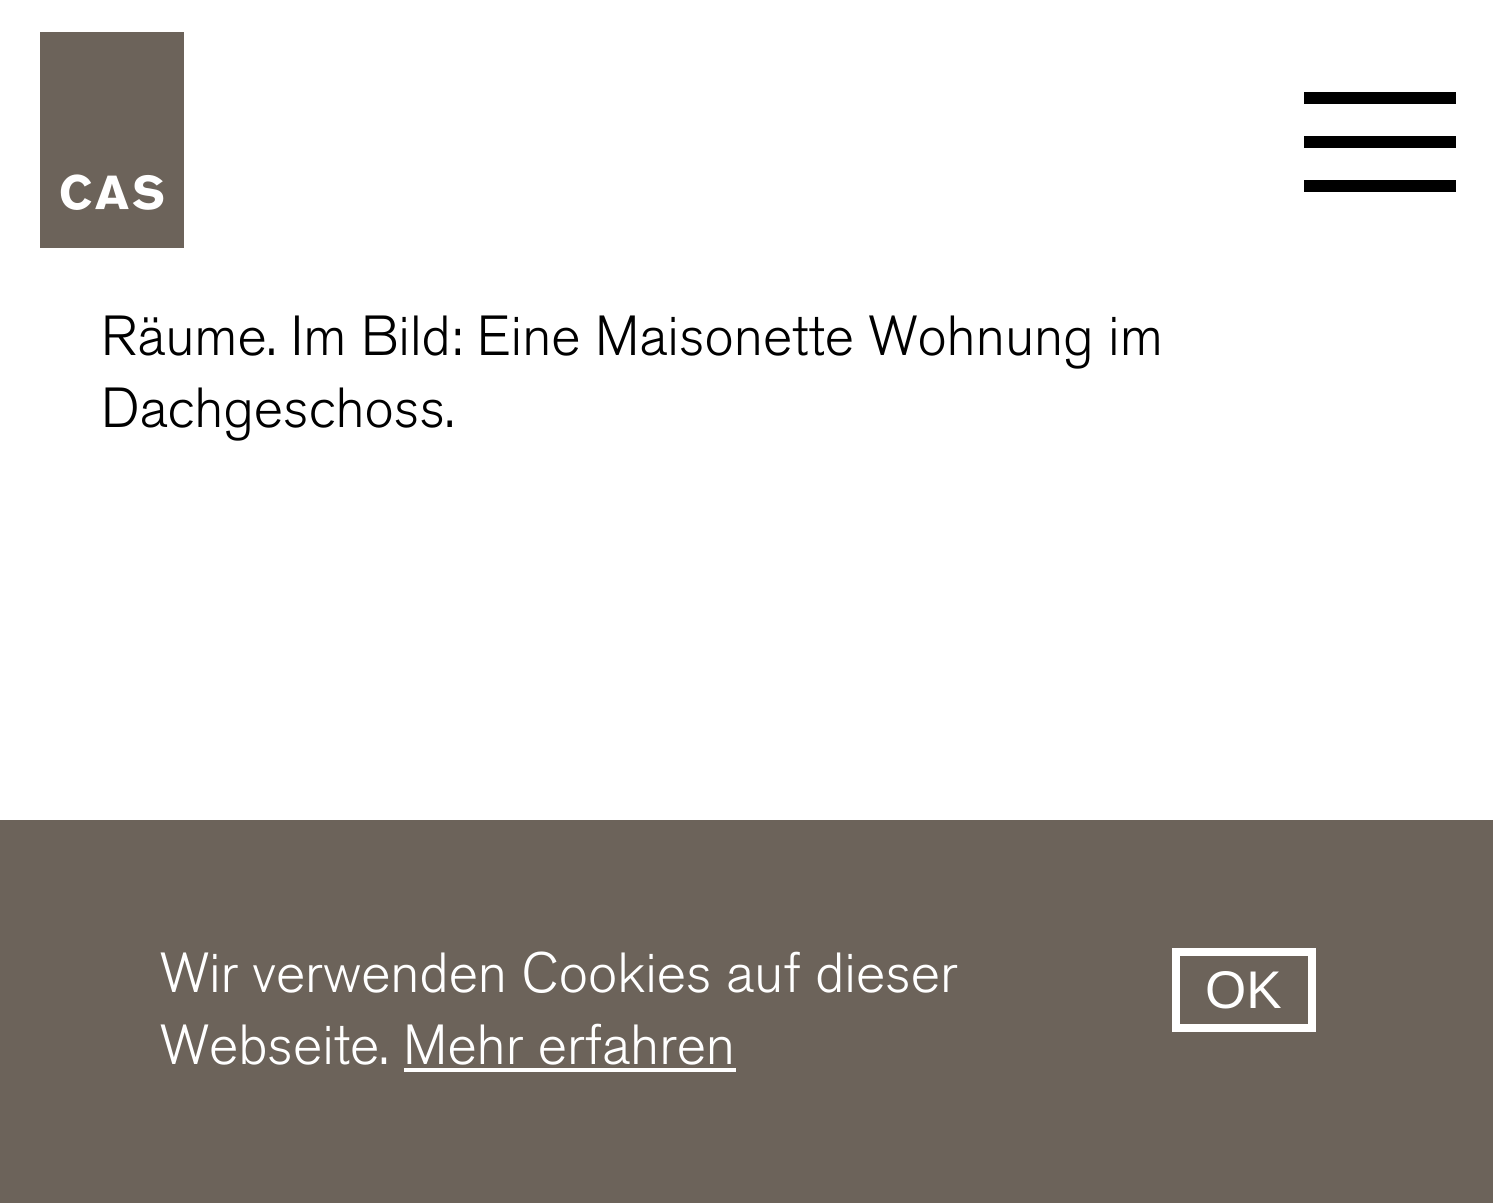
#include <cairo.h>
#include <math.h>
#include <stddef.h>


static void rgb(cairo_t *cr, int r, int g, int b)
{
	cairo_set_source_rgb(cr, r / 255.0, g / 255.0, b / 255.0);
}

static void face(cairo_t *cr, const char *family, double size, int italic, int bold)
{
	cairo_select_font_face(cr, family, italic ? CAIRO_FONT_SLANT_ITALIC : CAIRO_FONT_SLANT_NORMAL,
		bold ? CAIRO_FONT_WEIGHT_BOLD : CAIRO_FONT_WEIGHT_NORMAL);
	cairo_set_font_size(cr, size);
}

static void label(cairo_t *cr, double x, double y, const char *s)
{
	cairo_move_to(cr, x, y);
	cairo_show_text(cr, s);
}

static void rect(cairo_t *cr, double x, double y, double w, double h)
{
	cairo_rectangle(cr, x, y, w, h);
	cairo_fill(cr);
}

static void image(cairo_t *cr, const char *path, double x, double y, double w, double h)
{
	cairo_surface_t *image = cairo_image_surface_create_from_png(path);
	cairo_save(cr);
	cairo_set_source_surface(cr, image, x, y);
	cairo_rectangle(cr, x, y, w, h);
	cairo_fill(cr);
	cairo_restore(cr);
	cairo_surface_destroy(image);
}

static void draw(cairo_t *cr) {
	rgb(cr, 255, 255, 255);
	cairo_paint(cr);
	image(cr, "image0.png", 40, 32, 144, 216);
	rgb(cr, 0, 0, 0);
	rect(cr, 1304, 92, 152, 12);
	rect(cr, 1304, 136, 152, 12);
	rect(cr, 1304, 180, 152, 12);
	face(cr, "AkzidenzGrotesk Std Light", 56, 0, 0);
	label(cr, 101, 355, "Räume. Im Bild: Eine Maisonette Wohnung im");
	label(cr, 101, 427, "Dachgeschoss.");
	rgb(cr, 108, 99, 90);
	rect(cr, 0, 820, 1493, 383);
	rgb(cr, 255, 255, 255);
	label(cr, 160, 992, "Wir verwenden Cookies auf dieser");
	label(cr, 160, 1064, "Webseite. Mehr erfahren");
	rect(cr, 404, 1068, 332, 4);
	cairo_rectangle(cr, 1176, 952, 136, 76);
	cairo_set_line_width(cr, 8);
	cairo_stroke(cr);
	face(cr, "Liberation Sans", 53, 0, 0);
	label(cr, 1205, 1008, "OK");
}

int main(void) {
	cairo_surface_t *surface = cairo_image_surface_create(CAIRO_FORMAT_RGB24, 1493, 1203);
	cairo_t *cr = cairo_create(surface);
	cairo_font_options_t *options = cairo_font_options_create();
	cairo_font_options_set_hint_metrics(options, CAIRO_HINT_METRICS_OFF);
	cairo_font_options_set_hint_style(options, CAIRO_HINT_STYLE_NONE);
	cairo_set_font_options(cr, options);
	cairo_set_miter_limit(cr, 4);
	draw(cr);
	cairo_surface_write_to_png(surface, "render.png");
	cairo_font_options_destroy(options);
	cairo_destroy(cr);
	cairo_surface_destroy(surface);
	return 0;
}
